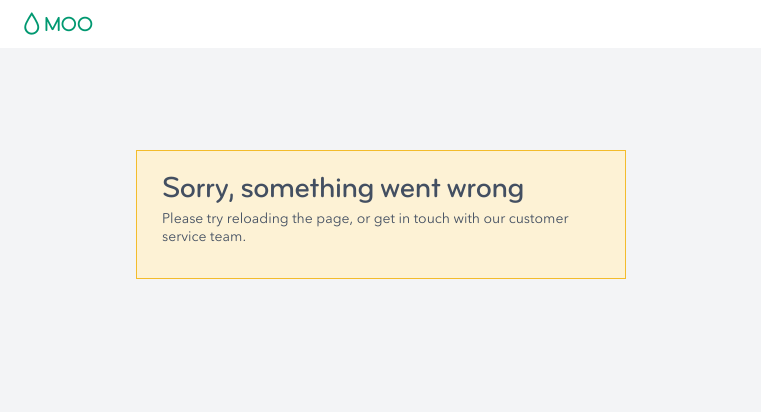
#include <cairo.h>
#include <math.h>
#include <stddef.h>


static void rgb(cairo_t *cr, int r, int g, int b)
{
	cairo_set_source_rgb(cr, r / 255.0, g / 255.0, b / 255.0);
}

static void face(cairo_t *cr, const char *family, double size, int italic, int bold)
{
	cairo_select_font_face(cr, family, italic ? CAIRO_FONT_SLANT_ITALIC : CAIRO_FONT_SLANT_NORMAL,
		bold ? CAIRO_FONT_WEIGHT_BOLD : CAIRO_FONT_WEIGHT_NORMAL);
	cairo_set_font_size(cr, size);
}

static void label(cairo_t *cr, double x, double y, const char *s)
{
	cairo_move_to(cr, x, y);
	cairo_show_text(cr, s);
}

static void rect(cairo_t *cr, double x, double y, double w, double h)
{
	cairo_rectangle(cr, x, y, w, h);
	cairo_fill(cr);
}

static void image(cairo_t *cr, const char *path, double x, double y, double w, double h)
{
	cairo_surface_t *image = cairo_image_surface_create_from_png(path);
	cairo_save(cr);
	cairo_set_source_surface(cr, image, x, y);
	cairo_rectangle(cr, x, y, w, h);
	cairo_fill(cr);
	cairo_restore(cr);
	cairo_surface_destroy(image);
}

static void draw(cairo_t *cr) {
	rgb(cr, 243, 244, 246);
	cairo_paint(cr);
	rgb(cr, 255, 255, 255);
	rect(cr, 0, 0, 761, 48);
	image(cr, "image0.png", 24, 12, 69, 23);
	rgb(cr, 253, 242, 213);
	cairo_rectangle(cr, 136.5, 150.5, 489, 128);
	cairo_fill_preserve(cr);
	rgb(cr, 243, 188, 44);
	cairo_set_line_width(cr, 1);
	cairo_stroke(cr);
	face(cr, "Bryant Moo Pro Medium", 30, 0, 0);
	rgb(cr, 67, 79, 97);
	label(cr, 162, 197, "Sorry, something went wrong");
	face(cr, "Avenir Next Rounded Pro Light", 14, 0, 0);
	label(cr, 162, 223, "Please try reloading the page, or get in touch with our customer");
	label(cr, 162, 241, "service team.");
}

int main(void) {
	cairo_surface_t *surface = cairo_image_surface_create(CAIRO_FORMAT_RGB24, 761, 412);
	cairo_t *cr = cairo_create(surface);
	cairo_font_options_t *options = cairo_font_options_create();
	cairo_font_options_set_hint_metrics(options, CAIRO_HINT_METRICS_OFF);
	cairo_font_options_set_hint_style(options, CAIRO_HINT_STYLE_NONE);
	cairo_set_font_options(cr, options);
	cairo_set_miter_limit(cr, 4);
	draw(cr);
	cairo_surface_write_to_png(surface, "render.png");
	cairo_font_options_destroy(options);
	cairo_destroy(cr);
	cairo_surface_destroy(surface);
	return 0;
}
